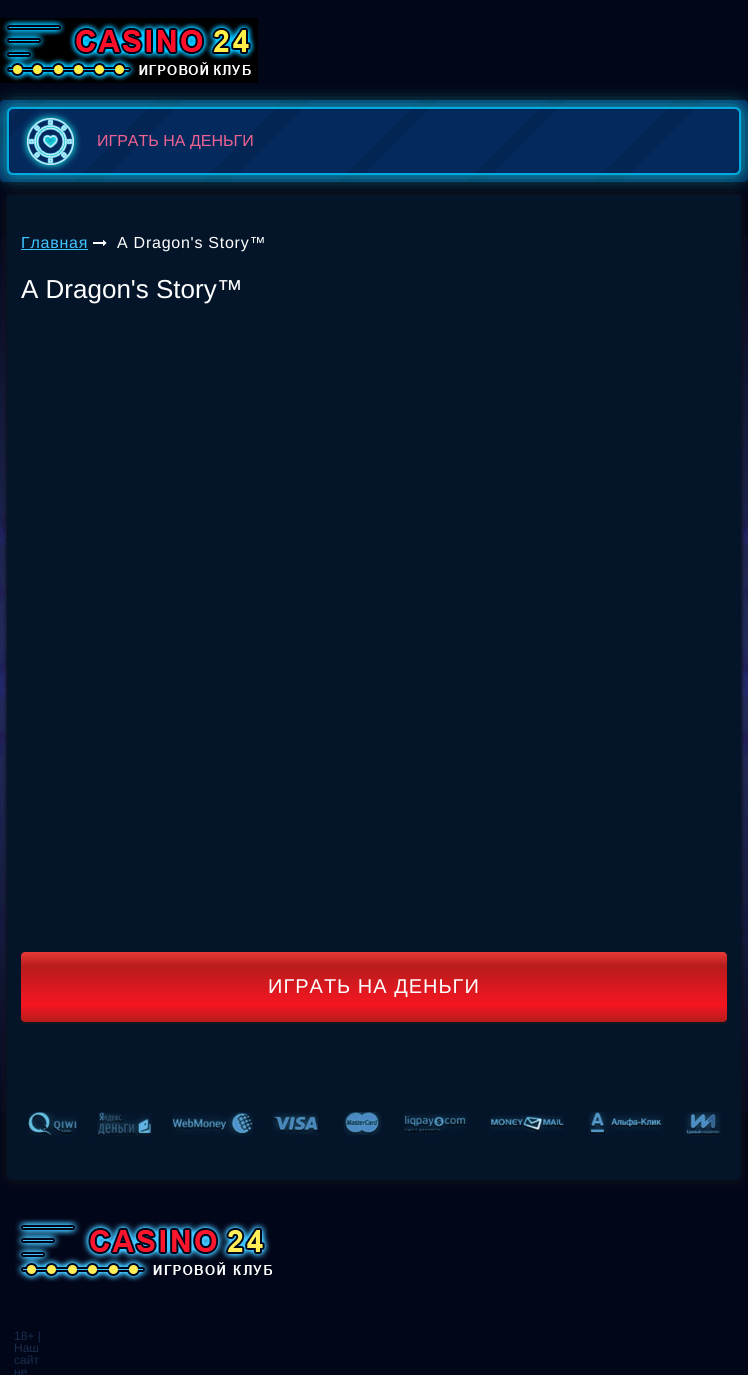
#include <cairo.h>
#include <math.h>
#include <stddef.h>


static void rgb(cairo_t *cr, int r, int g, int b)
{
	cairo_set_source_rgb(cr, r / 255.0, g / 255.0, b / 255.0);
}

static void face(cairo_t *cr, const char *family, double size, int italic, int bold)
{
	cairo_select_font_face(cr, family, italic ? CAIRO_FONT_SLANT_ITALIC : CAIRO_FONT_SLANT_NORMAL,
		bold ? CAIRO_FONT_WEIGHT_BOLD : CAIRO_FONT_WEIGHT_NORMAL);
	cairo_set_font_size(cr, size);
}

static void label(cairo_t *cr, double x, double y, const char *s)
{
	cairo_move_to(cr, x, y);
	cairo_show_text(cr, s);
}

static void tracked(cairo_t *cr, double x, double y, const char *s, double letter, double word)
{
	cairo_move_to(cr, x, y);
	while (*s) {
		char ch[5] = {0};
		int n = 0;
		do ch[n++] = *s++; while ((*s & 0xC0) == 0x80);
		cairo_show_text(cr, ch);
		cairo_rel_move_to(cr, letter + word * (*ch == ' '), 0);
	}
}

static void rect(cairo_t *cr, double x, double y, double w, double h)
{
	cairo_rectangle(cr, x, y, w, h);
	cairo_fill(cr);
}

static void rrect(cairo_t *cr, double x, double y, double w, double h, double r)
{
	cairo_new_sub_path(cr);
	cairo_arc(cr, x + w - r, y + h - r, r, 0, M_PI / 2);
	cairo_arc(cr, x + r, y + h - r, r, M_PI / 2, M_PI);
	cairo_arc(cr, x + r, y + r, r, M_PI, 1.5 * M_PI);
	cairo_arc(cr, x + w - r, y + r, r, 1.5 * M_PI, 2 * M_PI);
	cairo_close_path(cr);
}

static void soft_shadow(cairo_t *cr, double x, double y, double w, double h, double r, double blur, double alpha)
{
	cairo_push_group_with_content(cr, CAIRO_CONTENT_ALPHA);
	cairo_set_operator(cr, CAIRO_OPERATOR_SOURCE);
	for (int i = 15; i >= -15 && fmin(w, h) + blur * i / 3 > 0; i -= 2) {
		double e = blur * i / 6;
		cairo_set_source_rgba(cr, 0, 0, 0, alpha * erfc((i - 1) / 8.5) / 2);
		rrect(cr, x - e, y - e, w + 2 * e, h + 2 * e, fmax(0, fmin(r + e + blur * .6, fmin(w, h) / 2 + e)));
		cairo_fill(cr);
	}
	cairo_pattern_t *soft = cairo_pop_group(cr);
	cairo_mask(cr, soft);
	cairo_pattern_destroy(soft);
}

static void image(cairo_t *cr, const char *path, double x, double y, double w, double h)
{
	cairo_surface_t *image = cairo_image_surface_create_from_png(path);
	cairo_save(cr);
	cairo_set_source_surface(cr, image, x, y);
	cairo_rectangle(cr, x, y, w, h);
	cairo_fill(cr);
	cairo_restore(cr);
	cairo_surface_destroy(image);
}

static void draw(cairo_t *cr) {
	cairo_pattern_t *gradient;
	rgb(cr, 2, 6, 25);
	cairo_paint(cr);
	image(cr, "image0.png", 0, 18, 258, 65);
	gradient = cairo_pattern_create_linear(582, 349, 126, -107);
	cairo_pattern_add_color_stop_rgba(gradient, 0, 0.012, 0.145, 0.329, 1);
	cairo_pattern_add_color_stop_rgba(gradient, 0.03, 0.012, 0.145, 0.329, 1);
	cairo_pattern_add_color_stop_rgba(gradient, 0.03, 0.012, 0.161, 0.365, 1);
	cairo_pattern_add_color_stop_rgba(gradient, 0.14, 0.012, 0.161, 0.365, 1);
	cairo_pattern_add_color_stop_rgba(gradient, 0.14, 0.012, 0.145, 0.329, 1);
	cairo_pattern_add_color_stop_rgba(gradient, 0.17, 0.012, 0.145, 0.329, 1);
	cairo_pattern_add_color_stop_rgba(gradient, 0.17, 0.012, 0.161, 0.365, 1);
	cairo_pattern_add_color_stop_rgba(gradient, 0.29, 0.012, 0.161, 0.365, 1);
	cairo_pattern_add_color_stop_rgba(gradient, 0.29, 0.012, 0.145, 0.329, 1);
	cairo_pattern_add_color_stop_rgba(gradient, 0.31, 0.012, 0.145, 0.329, 1);
	cairo_pattern_add_color_stop_rgba(gradient, 0.31, 0.012, 0.161, 0.365, 1);
	cairo_pattern_add_color_stop_rgba(gradient, 0.43, 0.012, 0.161, 0.365, 1);
	cairo_pattern_add_color_stop_rgba(gradient, 0.43, 0.012, 0.145, 0.329, 1);
	cairo_pattern_add_color_stop_rgba(gradient, 0.45, 0.012, 0.145, 0.329, 1);
	cairo_pattern_add_color_stop_rgba(gradient, 0.45, 0.012, 0.161, 0.365, 1);
	cairo_pattern_add_color_stop_rgba(gradient, 0.57, 0.012, 0.161, 0.365, 1);
	cairo_pattern_add_color_stop_rgba(gradient, 0.57, 0.012, 0.145, 0.329, 1);
	cairo_pattern_add_color_stop_rgba(gradient, 0.6, 0.012, 0.145, 0.329, 1);
	cairo_pattern_add_color_stop_rgba(gradient, 0.6, 0.012, 0.161, 0.365, 1);
	cairo_pattern_add_color_stop_rgba(gradient, 0.71, 0.012, 0.161, 0.365, 1);
	cairo_pattern_add_color_stop_rgba(gradient, 0.71, 0.012, 0.145, 0.329, 1);
	cairo_pattern_add_color_stop_rgba(gradient, 0.74, 0.012, 0.145, 0.329, 1);
	cairo_pattern_add_color_stop_rgba(gradient, 0.74, 0.012, 0.161, 0.365, 1);
	cairo_pattern_add_color_stop_rgba(gradient, 0.86, 0.012, 0.161, 0.365, 1);
	cairo_pattern_add_color_stop_rgba(gradient, 0.86, 0.012, 0.145, 0.329, 1);
	cairo_pattern_add_color_stop_rgba(gradient, 0.88, 0.012, 0.145, 0.329, 1);
	cairo_pattern_add_color_stop_rgba(gradient, 0.88, 0.012, 0.161, 0.365, 1);
	cairo_pattern_add_color_stop_rgba(gradient, 1, 0.012, 0.161, 0.365, 1);
	cairo_set_source(cr, gradient);
	cairo_pattern_destroy(gradient);
	rrect(cr, 0, 100, 748, 82, 4);
	cairo_fill(cr);
	cairo_save(cr);
	cairo_set_fill_rule(cr, CAIRO_FILL_RULE_EVEN_ODD);
	cairo_new_path(cr);
	cairo_move_to(cr, 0, 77);
	cairo_line_to(cr, 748, 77);
	cairo_line_to(cr, 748, 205);
	cairo_line_to(cr, 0, 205);
	cairo_close_path(cr);
	cairo_move_to(cr, 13, 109);
	cairo_line_to(cr, 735, 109);
	cairo_curve_to(cr, 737, 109, 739, 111, 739, 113);
	cairo_line_to(cr, 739, 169);
	cairo_curve_to(cr, 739, 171, 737, 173, 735, 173);
	cairo_line_to(cr, 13, 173);
	cairo_curve_to(cr, 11, 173, 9, 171, 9, 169);
	cairo_line_to(cr, 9, 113);
	cairo_curve_to(cr, 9, 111, 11, 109, 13, 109);
	cairo_close_path(cr);
	cairo_clip(cr);
	rgb(cr, 24, 255, 255);
	soft_shadow(cr, 8, 108, 732, 66, 5, 10, 0.75);
	cairo_restore(cr);
	rrect(cr, 8, 108, 732, 66, 5);
	rgb(cr, 0, 169, 224);
	cairo_stroke(cr);
	image(cr, "image1.png", 20, 111, 61, 61);
	face(cr, "Liberation Sans", 16, 0, 0);
	rgb(cr, 240, 98, 146);
	label(cr, 97, 146, "ИГРАТЬ НА ДЕНЬГИ");
	rgb(cr, 24, 24, 24);
	soft_shadow(cr, 6, 195, 736, 987, 7, 5, 0.65);
	rgb(cr, 4, 21, 42);
	cairo_new_path(cr);
	cairo_move_to(cr, 7, 195);
	cairo_line_to(cr, 741, 195);
	cairo_line_to(cr, 741, 1174);
	cairo_curve_to(cr, 741, 1177.5, 738.5, 1180, 735, 1180);
	cairo_line_to(cr, 13, 1180);
	cairo_curve_to(cr, 9.5, 1180, 7, 1177.5, 7, 1174);
	cairo_close_path(cr);
	cairo_fill(cr);
	image(cr, "image2.png", 0, 238, 7, 875);
	rgb(cr, 64, 196, 255);
	tracked(cr, 21, 248, "Главная", 0.75, 0);
	rect(cr, 21, 249, 67, 1);
	image(cr, "image3.png", 93, 240, 14, 6);
	rgb(cr, 255, 255, 255);
	tracked(cr, 117, 248, "A Dragon's Story™", 0.75, 0);
	face(cr, "Liberation Sans", 26, 0, 0);
	label(cr, 21, 298, "A Dragon's Story™");
	rgb(cr, 17, 23, 30);
	cairo_new_path(cr);
	cairo_move_to(cr, 21, 1018);
	cairo_curve_to(cr, 21, 1021, 21, 1024, 25, 1024);
	cairo_line_to(cr, 723, 1024);
	cairo_curve_to(cr, 727, 1024, 727, 1021, 727, 1018);
	cairo_curve_to(cr, 727, 1020, 725, 1022, 723, 1022);
	cairo_line_to(cr, 25, 1022);
	cairo_curve_to(cr, 23, 1022, 21, 1020, 21, 1018);
	cairo_close_path(cr);
	cairo_fill(cr);
	gradient = cairo_pattern_create_linear(374, 952, 374, 1022);
	cairo_pattern_add_color_stop_rgba(gradient, 0.01, 0.898, 0.224, 0.208, 1);
	cairo_pattern_add_color_stop_rgba(gradient, 0.2, 0.718, 0.11, 0.11, 1);
	cairo_pattern_add_color_stop_rgba(gradient, 0.75, 0.961, 0.086, 0.133, 1);
	cairo_pattern_add_color_stop_rgba(gradient, 0.99, 0.718, 0.11, 0.11, 1);
	cairo_set_source(cr, gradient);
	cairo_pattern_destroy(gradient);
	rrect(cr, 21, 952, 706, 70, 4);
	cairo_fill(cr);
	face(cr, "Liberation Sans", 20, 0, 0);
	rgb(cr, 255, 255, 255);
	tracked(cr, 268, 993, "ИГРАТЬ НА ДЕНЬГИ", 1, 0);
	image(cr, "image4.png", 28, 1112, 693, 27);
	image(cr, "image5.png", 741, 238, 7, 875);
	image(cr, "image6.png", 15, 1218, 257, 64);
	face(cr, "Liberation Sans", 12, 0, 0);
	rgb(cr, 24, 45, 77);
	label(cr, 14, 1340, "18+ |");
	label(cr, 14, 1352, "Наш");
	label(cr, 14, 1364, "сайт");
	label(cr, 14, 1376, "не");
}

int main(void) {
	cairo_surface_t *surface = cairo_image_surface_create(CAIRO_FORMAT_RGB24, 748, 1375);
	cairo_t *cr = cairo_create(surface);
	cairo_font_options_t *options = cairo_font_options_create();
	cairo_font_options_set_hint_metrics(options, CAIRO_HINT_METRICS_OFF);
	cairo_font_options_set_hint_style(options, CAIRO_HINT_STYLE_NONE);
	cairo_set_font_options(cr, options);
	cairo_set_miter_limit(cr, 4);
	draw(cr);
	cairo_surface_write_to_png(surface, "render.png");
	cairo_font_options_destroy(options);
	cairo_destroy(cr);
	cairo_surface_destroy(surface);
	return 0;
}
